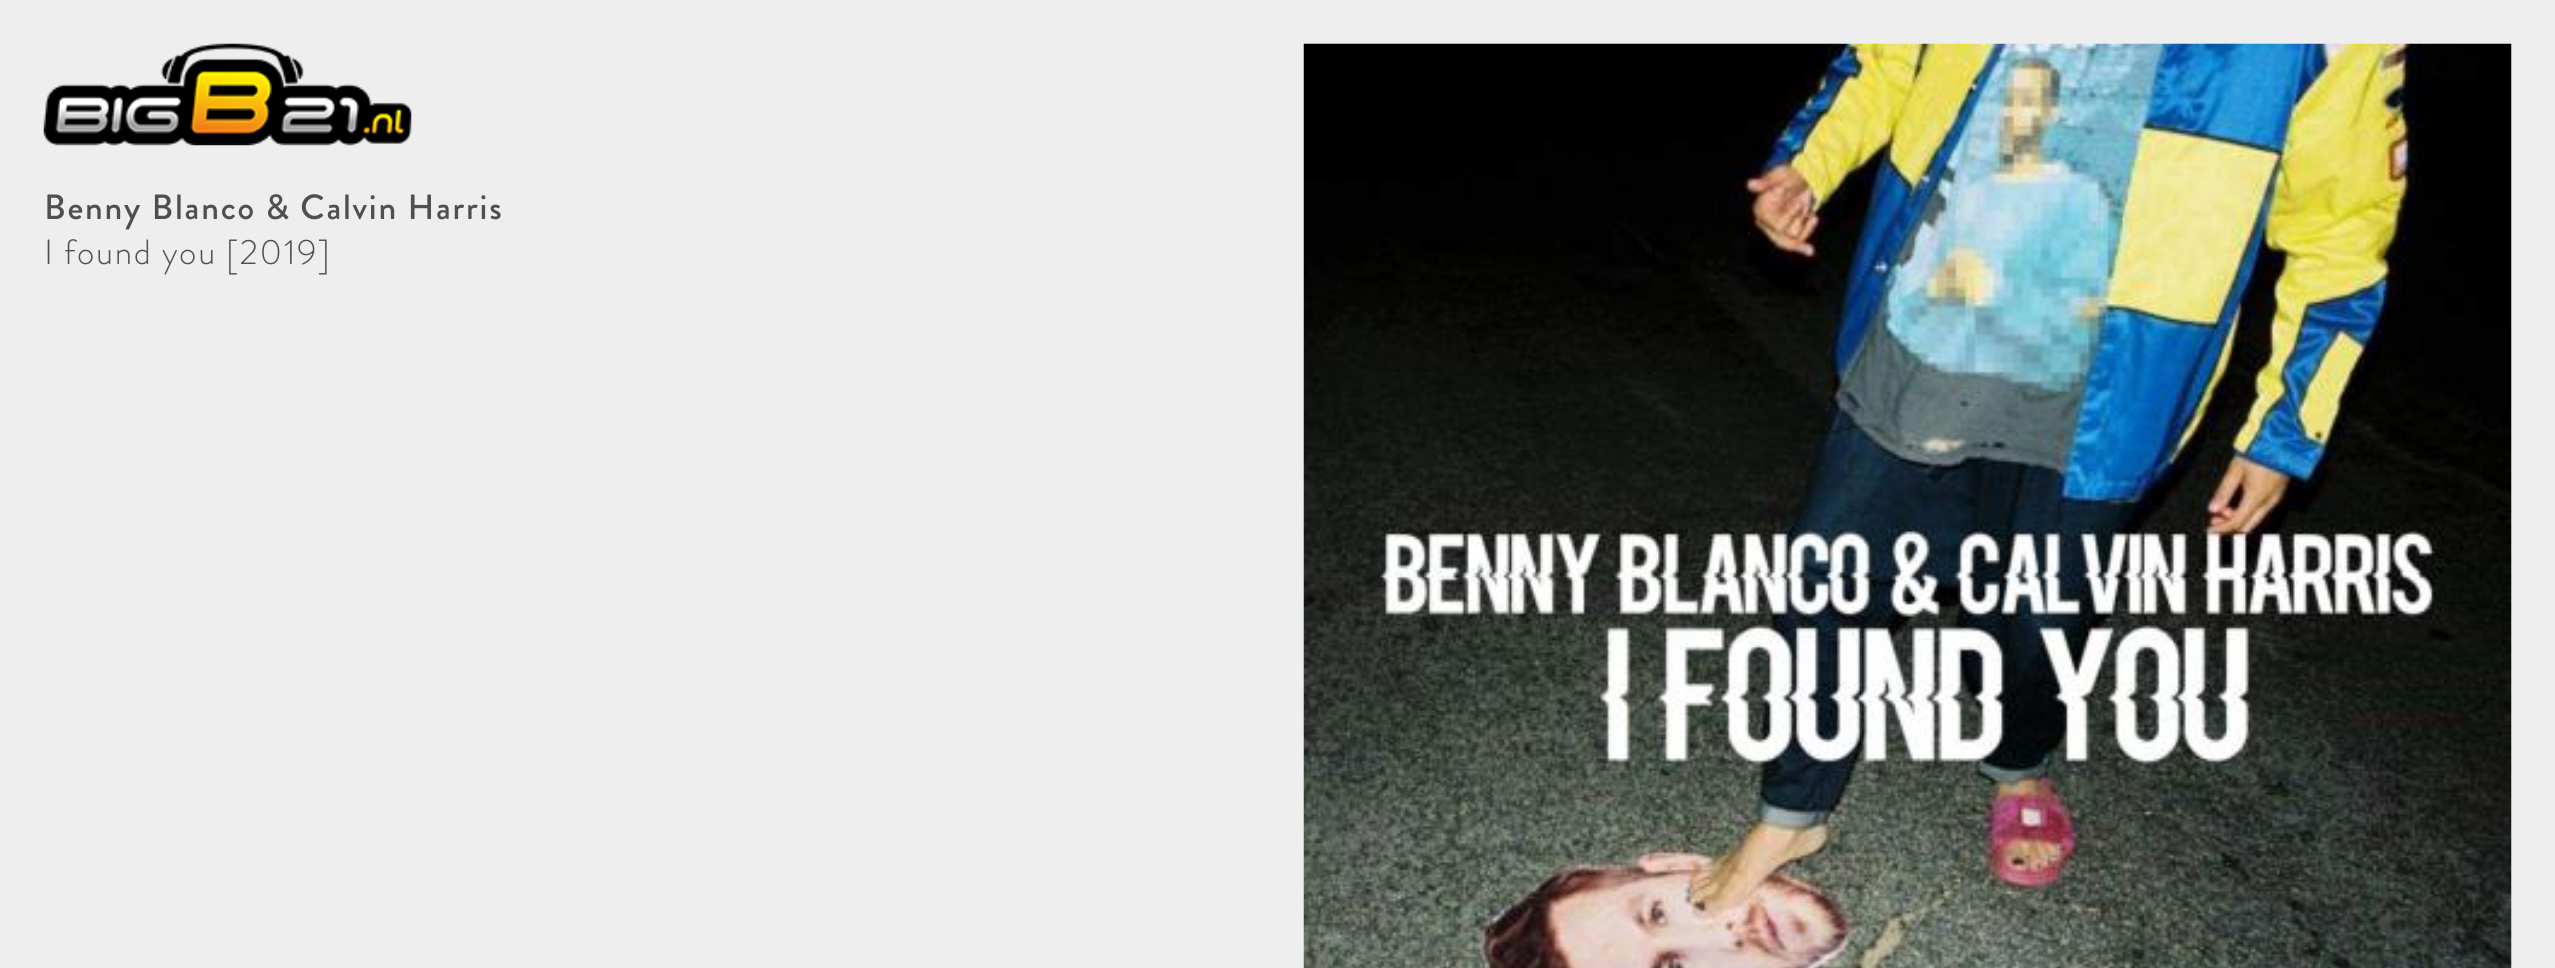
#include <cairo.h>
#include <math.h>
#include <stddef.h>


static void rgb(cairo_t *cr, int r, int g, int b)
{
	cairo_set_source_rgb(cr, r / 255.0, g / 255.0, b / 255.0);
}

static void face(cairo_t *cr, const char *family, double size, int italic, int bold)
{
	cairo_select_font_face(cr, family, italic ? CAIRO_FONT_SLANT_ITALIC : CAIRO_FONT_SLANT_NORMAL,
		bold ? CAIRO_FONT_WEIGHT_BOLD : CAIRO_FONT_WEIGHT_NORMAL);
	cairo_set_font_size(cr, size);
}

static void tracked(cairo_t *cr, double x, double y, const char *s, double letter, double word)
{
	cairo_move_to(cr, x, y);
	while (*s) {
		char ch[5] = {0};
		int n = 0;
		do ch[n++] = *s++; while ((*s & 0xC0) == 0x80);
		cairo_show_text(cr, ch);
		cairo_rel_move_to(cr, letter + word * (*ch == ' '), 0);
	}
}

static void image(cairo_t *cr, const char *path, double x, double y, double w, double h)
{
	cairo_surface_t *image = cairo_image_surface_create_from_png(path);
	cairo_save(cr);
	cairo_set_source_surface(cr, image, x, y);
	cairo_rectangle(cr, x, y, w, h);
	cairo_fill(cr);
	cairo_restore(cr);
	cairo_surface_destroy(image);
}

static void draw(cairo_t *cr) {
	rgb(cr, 238, 238, 238);
	cairo_paint(cr);
	image(cr, "image0.png", 43, 43, 369, 103);
	image(cr, "image1.png", 1303, 43, 1209, 925);
	face(cr, "Brandon Grotesque Medium", 35, 0, 0);
	rgb(cr, 79, 79, 79);
	tracked(cr, 44, 219, "Benny Blanco & Calvin Harris", 1.75, 0);
	face(cr, "Brandon Grotesque Light", 35, 0, 0);
	tracked(cr, 44, 264, "I found you [2019]", 1.75, 0);
}

int main(void) {
	cairo_surface_t *surface = cairo_image_surface_create(CAIRO_FORMAT_RGB24, 2555, 968);
	cairo_t *cr = cairo_create(surface);
	cairo_font_options_t *options = cairo_font_options_create();
	cairo_font_options_set_hint_metrics(options, CAIRO_HINT_METRICS_OFF);
	cairo_font_options_set_hint_style(options, CAIRO_HINT_STYLE_NONE);
	cairo_set_font_options(cr, options);
	cairo_set_miter_limit(cr, 4);
	draw(cr);
	cairo_surface_write_to_png(surface, "render.png");
	cairo_font_options_destroy(options);
	cairo_destroy(cr);
	cairo_surface_destroy(surface);
	return 0;
}
